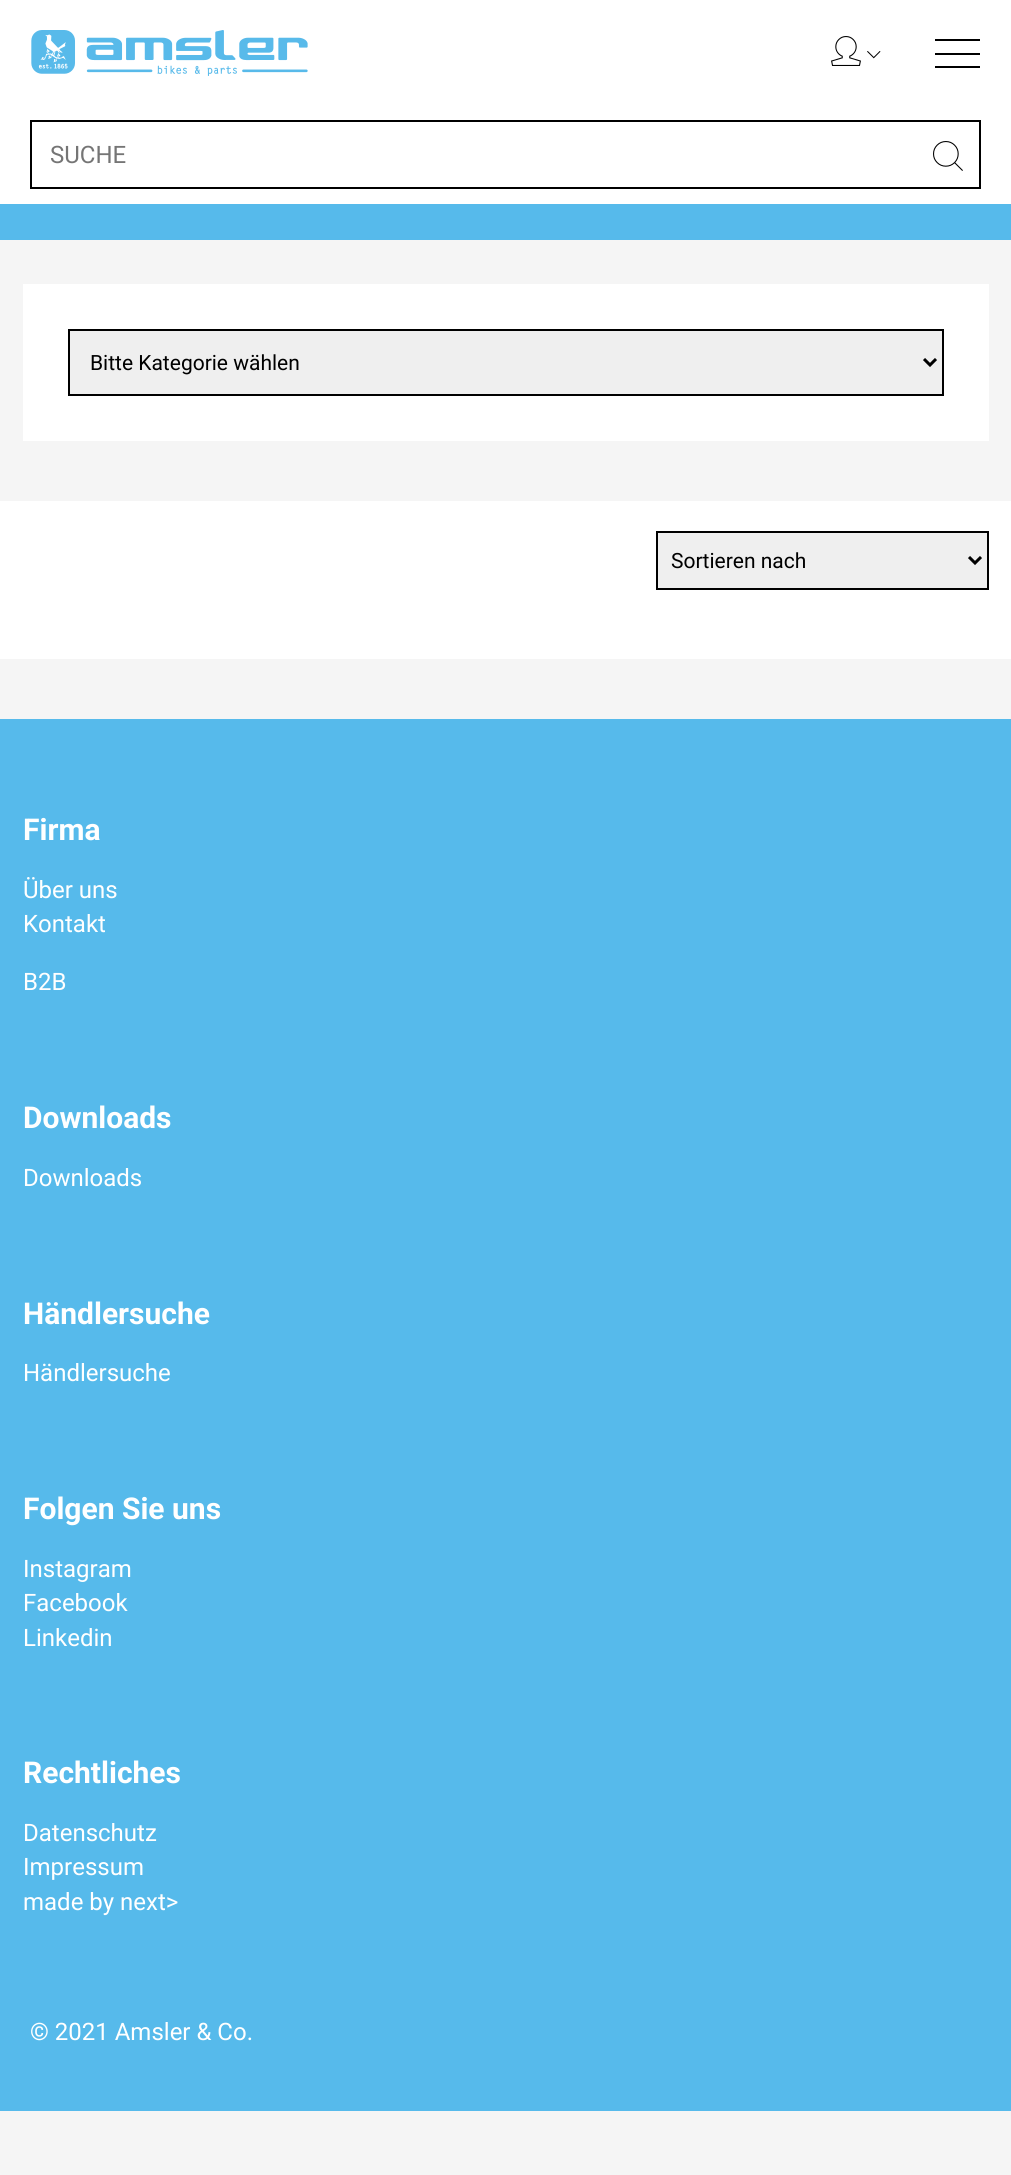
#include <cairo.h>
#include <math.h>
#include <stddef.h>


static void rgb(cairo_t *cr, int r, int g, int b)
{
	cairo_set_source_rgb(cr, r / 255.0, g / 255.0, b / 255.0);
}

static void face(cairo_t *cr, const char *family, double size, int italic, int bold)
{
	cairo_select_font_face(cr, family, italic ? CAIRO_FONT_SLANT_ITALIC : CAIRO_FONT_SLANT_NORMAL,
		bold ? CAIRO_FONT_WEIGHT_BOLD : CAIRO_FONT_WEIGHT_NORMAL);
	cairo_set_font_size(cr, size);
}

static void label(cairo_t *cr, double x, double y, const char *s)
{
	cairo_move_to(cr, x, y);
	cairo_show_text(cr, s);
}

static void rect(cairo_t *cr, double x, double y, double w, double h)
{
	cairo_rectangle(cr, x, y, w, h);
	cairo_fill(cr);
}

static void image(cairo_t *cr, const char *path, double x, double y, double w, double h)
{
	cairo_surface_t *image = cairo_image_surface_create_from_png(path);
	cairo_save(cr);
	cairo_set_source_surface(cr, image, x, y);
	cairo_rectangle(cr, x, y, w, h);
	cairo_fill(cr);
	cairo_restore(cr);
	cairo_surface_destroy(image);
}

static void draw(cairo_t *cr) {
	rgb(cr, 245, 245, 245);
	cairo_paint(cr);
	rgb(cr, 255, 255, 255);
	rect(cr, 0, 0, 1011, 204);
	image(cr, "image0.png", 31, 30, 277, 46);
	image(cr, "image1.png", 831, 36, 30, 30);
	image(cr, "image2.png", 867, 51, 14, 8);
	rgb(cr, 0, 0, 0);
	rect(cr, 935, 39, 45, 2);
	rect(cr, 935, 53, 45, 2);
	rect(cr, 935, 66, 45, 2);
	cairo_rectangle(cr, 31, 121, 949, 67);
	cairo_stroke(cr);
	face(cr, "Roboto", 24, 0, 0);
	rgb(cr, 117, 117, 117);
	label(cr, 50, 163, "SUCHE");
	image(cr, "image3.png", 933, 141, 30, 30);
	rgb(cr, 86, 186, 235);
	rect(cr, 0, 204, 1011, 36);
	rgb(cr, 255, 255, 255);
	rect(cr, 23, 284, 966, 157);
	rgb(cr, 239, 239, 239);
	cairo_rectangle(cr, 69, 330, 874, 65);
	cairo_fill_preserve(cr);
	rgb(cr, 0, 0, 0);
	cairo_stroke(cr);
	cairo_new_path(cr);
	cairo_move_to(cr, 924, 359);
	cairo_line_to(cr, 930, 365);
	cairo_line_to(cr, 936, 359);
	cairo_set_line_width(cr, 3);
	cairo_stroke(cr);
	face(cr, "Roboto", 21, 0, 0);
	label(cr, 90, 370, "Bitte Kategorie wählen");
	rgb(cr, 255, 255, 255);
	rect(cr, 0, 501, 1011, 158);
	rgb(cr, 239, 239, 239);
	cairo_rectangle(cr, 657, 532, 331, 57);
	cairo_fill_preserve(cr);
	rgb(cr, 0, 0, 0);
	cairo_set_line_width(cr, 2);
	cairo_stroke(cr);
	cairo_new_path(cr);
	cairo_move_to(cr, 969, 557);
	cairo_line_to(cr, 975, 563);
	cairo_line_to(cr, 981, 557);
	cairo_set_line_width(cr, 3);
	cairo_stroke(cr);
	label(cr, 671, 568, "Sortieren nach");
	rgb(cr, 86, 186, 235);
	rect(cr, 0, 719, 1011, 1392);
	face(cr, "Roboto", 30, 0, 1);
	rgb(cr, 255, 255, 255);
	label(cr, 23, 840, "Firma");
	face(cr, "Roboto", 24, 0, 0);
	label(cr, 23, 898, "Über uns");
	label(cr, 23, 932, "Kontakt");
	label(cr, 23, 990, "B2B");
	face(cr, "Roboto", 30, 0, 1);
	label(cr, 23, 1128, "Downloads");
	face(cr, "Roboto", 24, 0, 0);
	label(cr, 23, 1186, "Downloads");
	face(cr, "Roboto", 30, 0, 1);
	label(cr, 23, 1324, "Händlersuche");
	face(cr, "Roboto", 24, 0, 0);
	label(cr, 23, 1381, "Händlersuche");
	face(cr, "Roboto", 30, 0, 1);
	label(cr, 23, 1519, "Folgen Sie uns");
	face(cr, "Roboto", 24, 0, 0);
	label(cr, 23, 1577, "Instagram");
	label(cr, 23, 1611, "Facebook");
	label(cr, 23, 1646, "Linkedin");
	face(cr, "Roboto", 30, 0, 1);
	label(cr, 23, 1783, "Rechtliches");
	face(cr, "Roboto", 24, 0, 0);
	label(cr, 23, 1841, "Datenschutz");
	label(cr, 23, 1875, "Impressum");
	label(cr, 23, 1910, "made by next>");
	label(cr, 30, 2040, "© 2021 Amsler & Co.");
}

int main(void) {
	cairo_surface_t *surface = cairo_image_surface_create(CAIRO_FORMAT_RGB24, 1011, 2175);
	cairo_t *cr = cairo_create(surface);
	cairo_font_options_t *options = cairo_font_options_create();
	cairo_font_options_set_hint_metrics(options, CAIRO_HINT_METRICS_OFF);
	cairo_font_options_set_hint_style(options, CAIRO_HINT_STYLE_NONE);
	cairo_set_font_options(cr, options);
	cairo_set_miter_limit(cr, 4);
	draw(cr);
	cairo_surface_write_to_png(surface, "render.png");
	cairo_font_options_destroy(options);
	cairo_destroy(cr);
	cairo_surface_destroy(surface);
	return 0;
}
